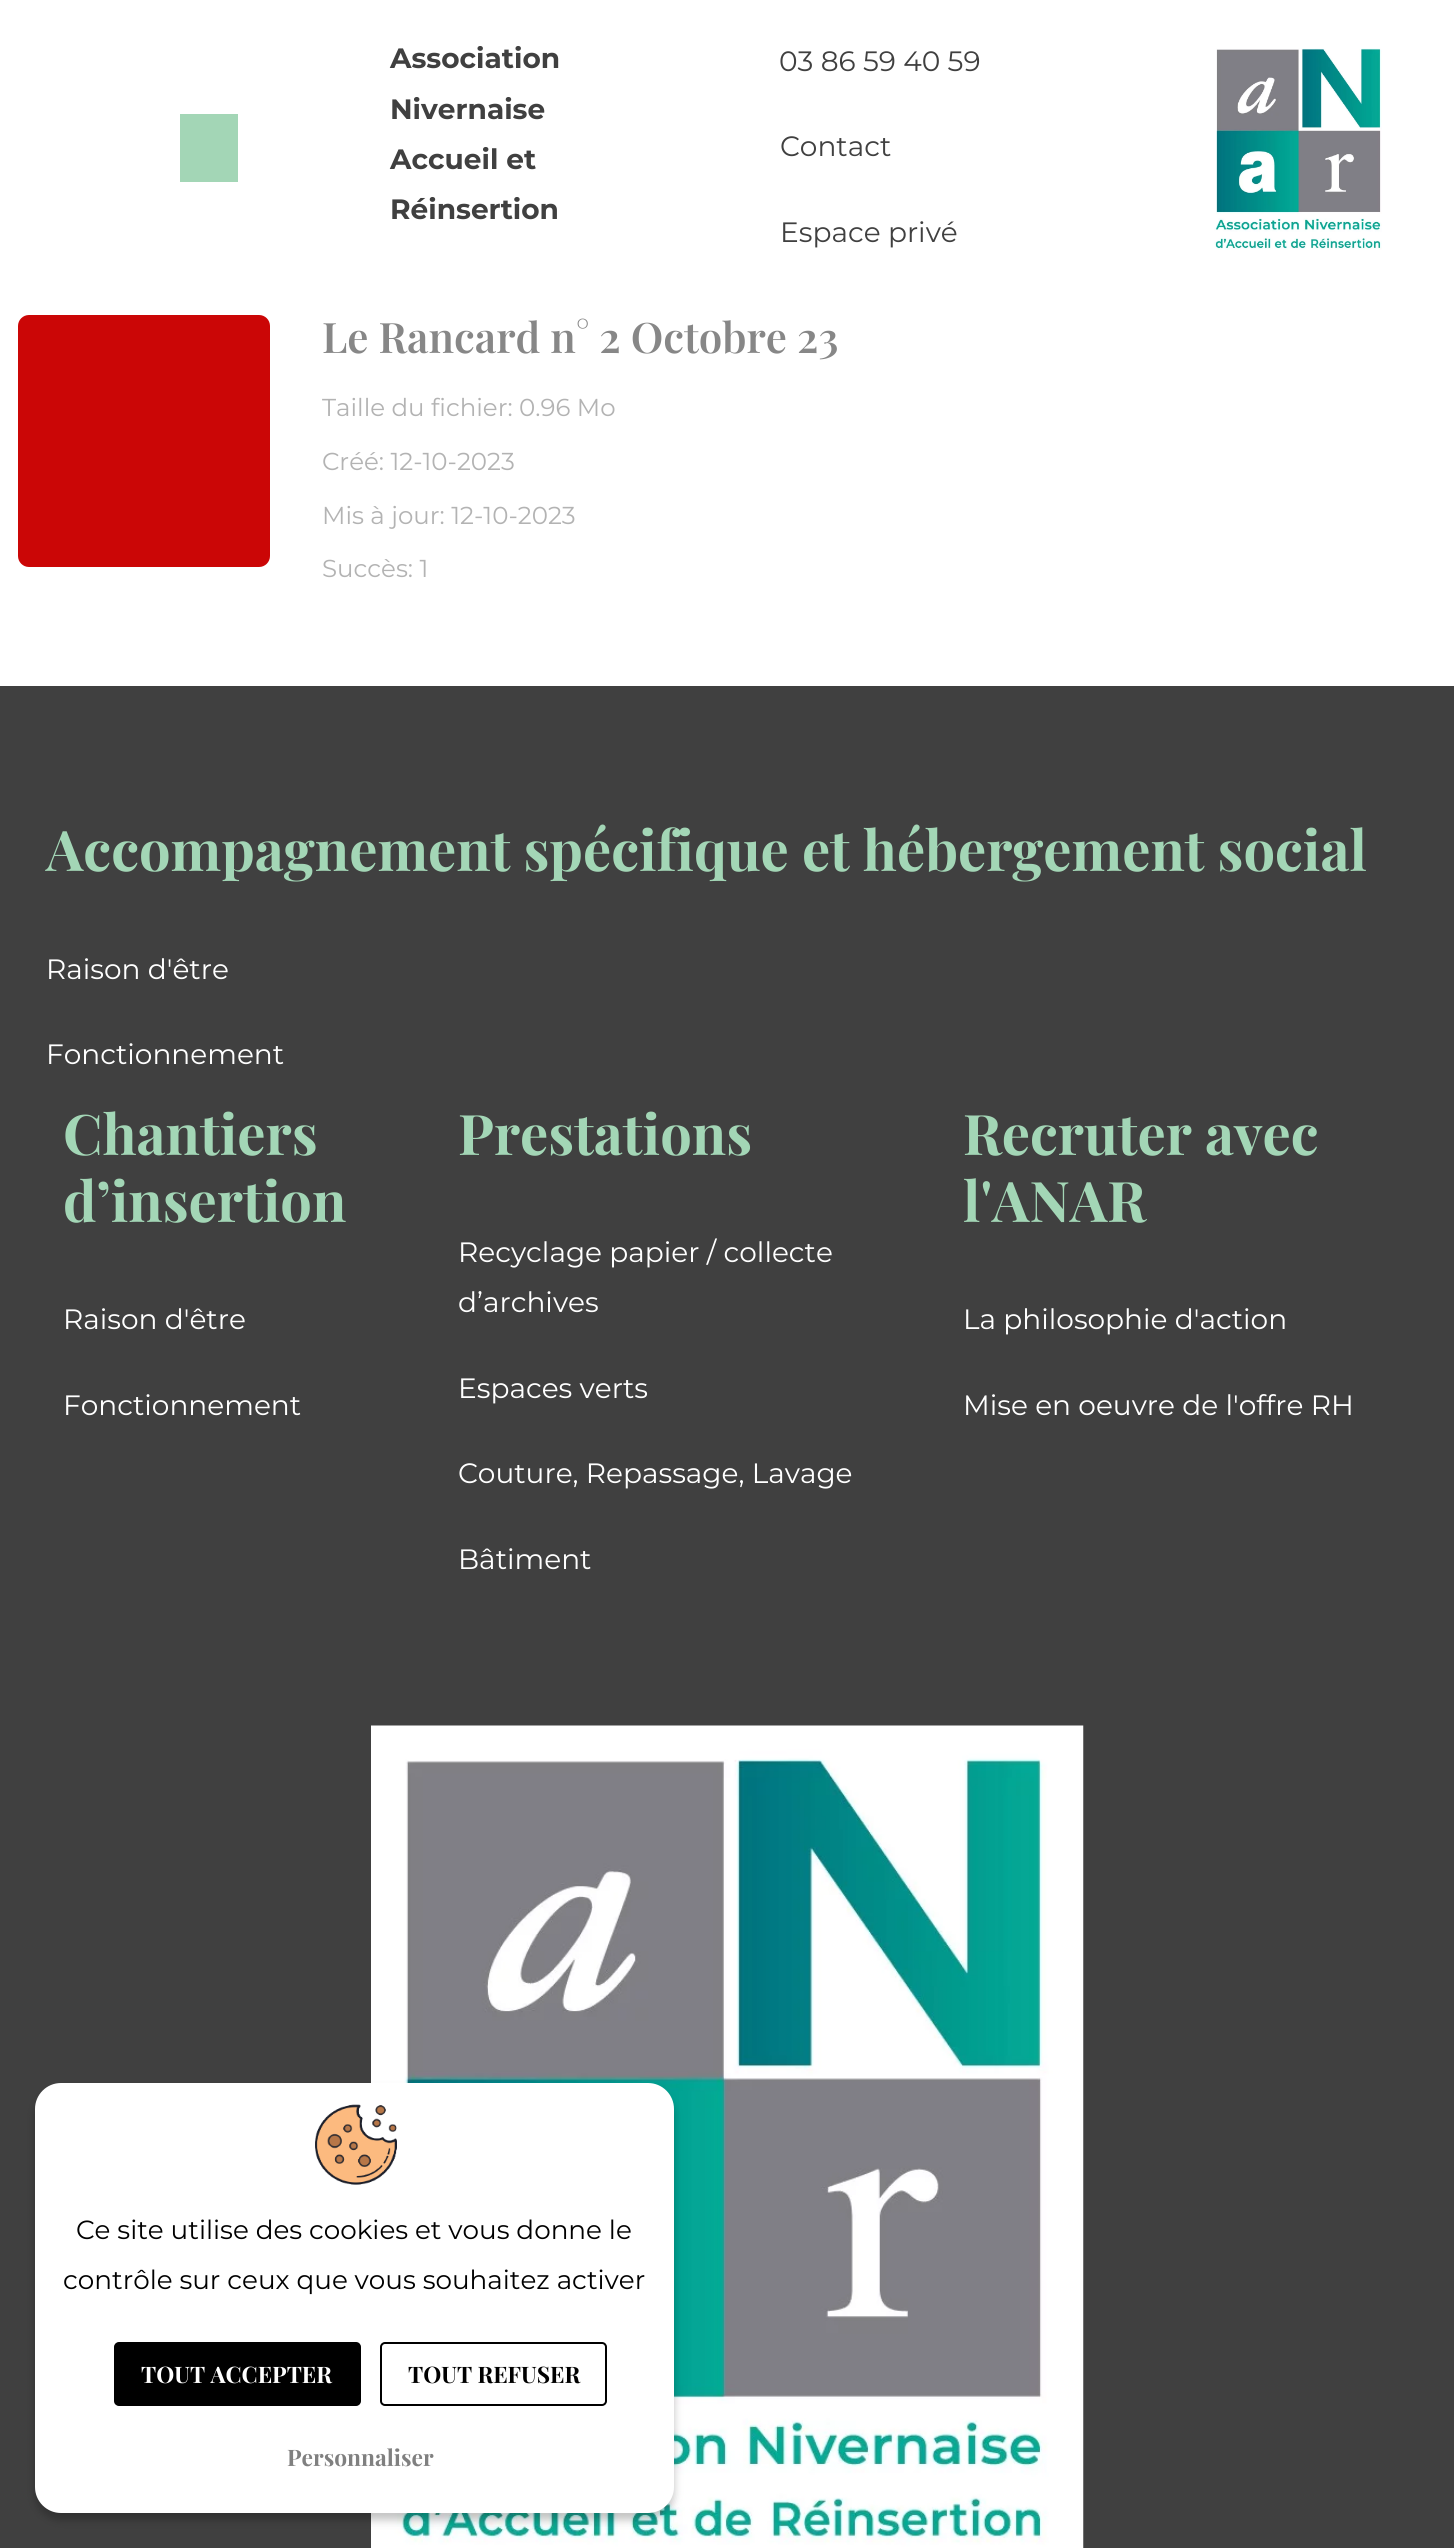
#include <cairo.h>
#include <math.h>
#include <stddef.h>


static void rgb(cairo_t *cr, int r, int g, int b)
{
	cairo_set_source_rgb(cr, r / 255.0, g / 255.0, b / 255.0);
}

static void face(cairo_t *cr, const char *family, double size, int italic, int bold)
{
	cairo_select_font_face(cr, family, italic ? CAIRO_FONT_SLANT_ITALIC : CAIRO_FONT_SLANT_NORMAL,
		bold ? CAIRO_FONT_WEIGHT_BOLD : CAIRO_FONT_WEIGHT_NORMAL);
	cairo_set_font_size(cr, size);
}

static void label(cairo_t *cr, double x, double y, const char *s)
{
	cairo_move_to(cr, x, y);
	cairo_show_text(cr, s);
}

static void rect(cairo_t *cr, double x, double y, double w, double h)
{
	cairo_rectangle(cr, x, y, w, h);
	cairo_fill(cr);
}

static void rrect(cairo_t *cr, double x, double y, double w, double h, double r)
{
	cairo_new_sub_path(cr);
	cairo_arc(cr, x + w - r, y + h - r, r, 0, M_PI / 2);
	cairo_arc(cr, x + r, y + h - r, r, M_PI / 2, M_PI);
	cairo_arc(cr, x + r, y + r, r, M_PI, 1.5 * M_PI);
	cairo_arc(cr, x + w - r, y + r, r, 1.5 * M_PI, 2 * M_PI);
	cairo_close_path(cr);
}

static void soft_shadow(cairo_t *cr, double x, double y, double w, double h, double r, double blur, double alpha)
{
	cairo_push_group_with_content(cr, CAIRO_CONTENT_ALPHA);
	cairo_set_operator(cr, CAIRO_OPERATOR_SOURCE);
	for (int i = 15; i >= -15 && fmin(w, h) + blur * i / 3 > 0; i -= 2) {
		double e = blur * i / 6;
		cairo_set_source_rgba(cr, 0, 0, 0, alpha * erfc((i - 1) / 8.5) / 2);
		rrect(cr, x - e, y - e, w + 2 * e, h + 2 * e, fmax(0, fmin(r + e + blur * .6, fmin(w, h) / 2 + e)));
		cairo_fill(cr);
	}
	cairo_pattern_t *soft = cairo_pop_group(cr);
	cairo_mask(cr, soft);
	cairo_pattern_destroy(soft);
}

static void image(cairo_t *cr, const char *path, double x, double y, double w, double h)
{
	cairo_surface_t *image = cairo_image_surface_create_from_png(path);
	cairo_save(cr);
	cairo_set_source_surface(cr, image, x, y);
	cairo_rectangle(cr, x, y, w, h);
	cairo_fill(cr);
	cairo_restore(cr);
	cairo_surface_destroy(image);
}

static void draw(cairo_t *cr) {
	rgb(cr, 255, 255, 255);
	cairo_paint(cr);
	rgb(cr, 163, 214, 182);
	rect(cr, 180, 114, 58, 68);
	face(cr, "Montserrat", 28, 0, 1);
	rgb(cr, 64, 64, 64);
	label(cr, 390, 68, "Association");
	label(cr, 390, 119, "Nivernaise");
	label(cr, 390, 169, "Accueil et");
	label(cr, 390, 219, "Réinsertion");
	face(cr, "Montserrat", 28, 0, 0);
	label(cr, 779, 71, "03 86 59 40 59");
	label(cr, 780, 156, "Contact");
	label(cr, 780, 242, "Espace privé");
	image(cr, "image0.png", 1214, 48, 168, 202);
	rgb(cr, 203, 6, 6);
	rrect(cr, 18, 315, 252, 252, 11);
	cairo_fill(cr);
	face(cr, "Playfair Display SemiBold", 42, 0, 0);
	rgb(cr, 135, 135, 135);
	label(cr, 322, 353, "Le Rancard n° 2 Octobre 23");
	face(cr, "Montserrat", 24.5, 0, 0);
	rgb(cr, 179, 179, 179);
	label(cr, 322, 416, "Taille du fichier: 0.96 Mo");
	label(cr, 322, 470, "Créé: 12-10-2023");
	label(cr, 322, 524, "Mis à jour: 12-10-2023");
	label(cr, 322, 577, "Succès: 1");
	rgb(cr, 64, 64, 64);
	rect(cr, 0, 686, 1454, 1862);
	face(cr, "Playfair Display", 56, 0, 1);
	rgb(cr, 163, 214, 182);
	label(cr, 46, 871, "Accompagnement spécifique et hébergement social");
	face(cr, "Montserrat", 28, 0, 0);
	rgb(cr, 255, 255, 255);
	label(cr, 46, 979, "Raison d'être");
	label(cr, 46, 1064, "Fonctionnement");
	face(cr, "Playfair Display", 56, 0, 1);
	rgb(cr, 163, 214, 182);
	label(cr, 63, 1155, "Chantiers");
	label(cr, 63, 1222, "d’insertion");
	face(cr, "Montserrat", 28, 0, 0);
	rgb(cr, 255, 255, 255);
	label(cr, 63, 1329, "Raison d'être");
	label(cr, 63, 1415, "Fonctionnement");
	face(cr, "Playfair Display", 56, 0, 1);
	rgb(cr, 163, 214, 182);
	label(cr, 458, 1155, "Prestations");
	face(cr, "Montserrat", 28, 0, 0);
	rgb(cr, 255, 255, 255);
	label(cr, 458, 1262, "Recyclage papier / collecte");
	label(cr, 458, 1312, "d’archives");
	label(cr, 458, 1398, "Espaces verts");
	label(cr, 458, 1483, "Couture, Repassage, Lavage");
	label(cr, 458, 1569, "Bâtiment");
	face(cr, "Playfair Display", 56, 0, 1);
	rgb(cr, 163, 214, 182);
	label(cr, 963, 1155, "Recruter avec");
	label(cr, 963, 1222, "l'ANAR");
	face(cr, "Montserrat", 28, 0, 0);
	rgb(cr, 255, 255, 255);
	label(cr, 963, 1329, "La philosophie d'action");
	label(cr, 963, 1415, "Mise en oeuvre de l'offre RH");
	image(cr, "image1.png", 371, 1725, 713, 823);
	rgb(cr, 0, 0, 0);
	soft_shadow(cr, 35, 2090, 639, 430, 26, 4.5, 0.24);
	rgb(cr, 255, 255, 255);
	rrect(cr, 35, 2083, 639, 430, 26);
	cairo_fill(cr);
	image(cr, "image2.png", 315, 2104, 82, 81);
	face(cr, "Montserrat", 26.25, 0, 0);
	rgb(cr, 0, 0, 0);
	label(cr, 76, 2239, "Ce site utilise des cookies et vous donne le");
	label(cr, 63, 2289, "contrôle sur ceux que vous souhaitez activer");
	rrect(cr, 115, 2343, 245, 62, 4);
	cairo_fill_preserve(cr);
	cairo_stroke(cr);
	face(cr, "Playfair Display", 22.75, 0, 1);
	rgb(cr, 255, 255, 255);
	label(cr, 141, 2383, "TOUT ACCEPTER");
	rrect(cr, 381, 2343, 225, 62, 4);
	rgb(cr, 0, 0, 0);
	cairo_stroke(cr);
	label(cr, 408, 2383, "TOUT REFUSER");
	rgb(cr, 128, 128, 128);
	label(cr, 287, 2466, "Personnaliser");
}

int main(void) {
	cairo_surface_t *surface = cairo_image_surface_create(CAIRO_FORMAT_RGB24, 1454, 2548);
	cairo_t *cr = cairo_create(surface);
	cairo_font_options_t *options = cairo_font_options_create();
	cairo_font_options_set_hint_metrics(options, CAIRO_HINT_METRICS_OFF);
	cairo_font_options_set_hint_style(options, CAIRO_HINT_STYLE_NONE);
	cairo_set_font_options(cr, options);
	cairo_set_miter_limit(cr, 4);
	draw(cr);
	cairo_surface_write_to_png(surface, "render.png");
	cairo_font_options_destroy(options);
	cairo_destroy(cr);
	cairo_surface_destroy(surface);
	return 0;
}
